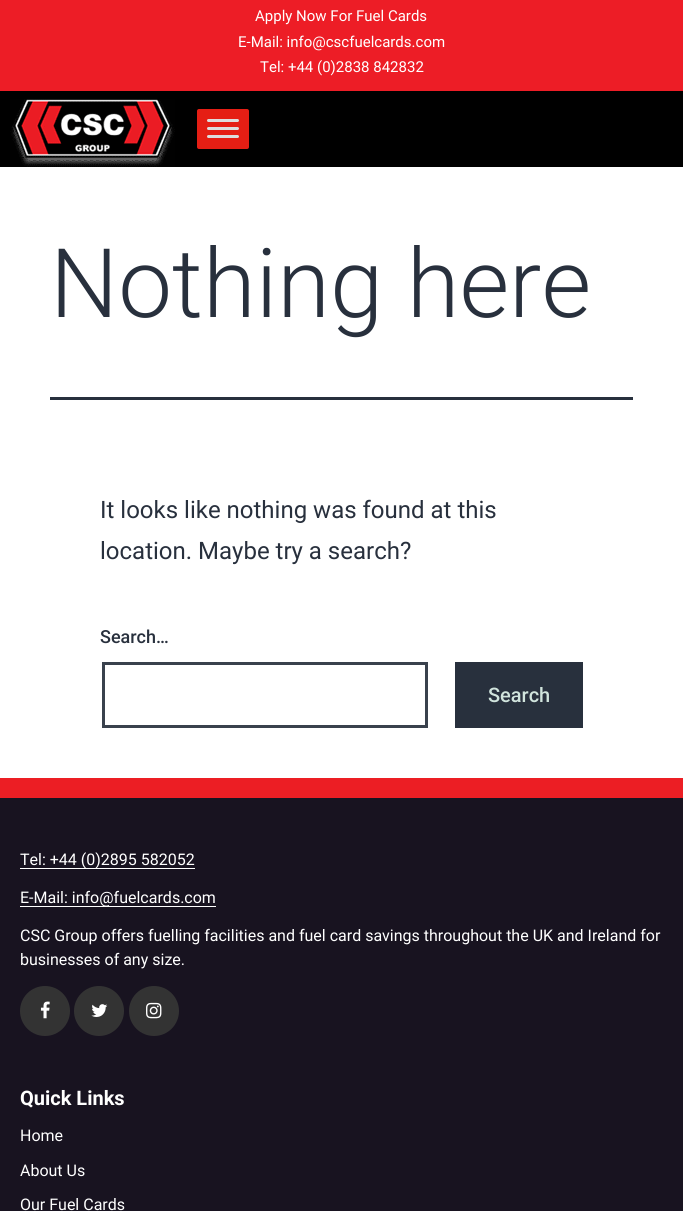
#include <cairo.h>
#include <math.h>
#include <stddef.h>


static void rgb(cairo_t *cr, int r, int g, int b)
{
	cairo_set_source_rgb(cr, r / 255.0, g / 255.0, b / 255.0);
}

static void face(cairo_t *cr, const char *family, double size, int italic, int bold)
{
	cairo_select_font_face(cr, family, italic ? CAIRO_FONT_SLANT_ITALIC : CAIRO_FONT_SLANT_NORMAL,
		bold ? CAIRO_FONT_WEIGHT_BOLD : CAIRO_FONT_WEIGHT_NORMAL);
	cairo_set_font_size(cr, size);
}

static void label(cairo_t *cr, double x, double y, const char *s)
{
	cairo_move_to(cr, x, y);
	cairo_show_text(cr, s);
}

static void rect(cairo_t *cr, double x, double y, double w, double h)
{
	cairo_rectangle(cr, x, y, w, h);
	cairo_fill(cr);
}

static void rrect(cairo_t *cr, double x, double y, double w, double h, double r)
{
	cairo_new_sub_path(cr);
	cairo_arc(cr, x + w - r, y + h - r, r, 0, M_PI / 2);
	cairo_arc(cr, x + r, y + h - r, r, M_PI / 2, M_PI);
	cairo_arc(cr, x + r, y + r, r, M_PI, 1.5 * M_PI);
	cairo_arc(cr, x + w - r, y + r, r, 1.5 * M_PI, 2 * M_PI);
	cairo_close_path(cr);
}

static void image(cairo_t *cr, const char *path, double x, double y, double w, double h)
{
	cairo_surface_t *image = cairo_image_surface_create_from_png(path);
	cairo_save(cr);
	cairo_set_source_surface(cr, image, x, y);
	cairo_rectangle(cr, x, y, w, h);
	cairo_fill(cr);
	cairo_restore(cr);
	cairo_surface_destroy(image);
}

static void draw(cairo_t *cr) {
	rgb(cr, 255, 255, 255);
	cairo_paint(cr);
	rgb(cr, 237, 29, 38);
	rect(cr, 0, 0, 683, 91);
	face(cr, "Roboto", 15, 0, 0);
	rgb(cr, 255, 255, 255);
	label(cr, 255, 21, "Apply Now For Fuel Cards");
	label(cr, 238, 47, "E-Mail: info@cscfuelcards.com");
	label(cr, 260, 72, "Tel: +44 (0)2838 842832");
	rgb(cr, 0, 0, 0);
	rect(cr, 0, 91, 683, 76);
	image(cr, "image0.png", 10, 99, 165, 68);
	rgb(cr, 229, 30, 20);
	rrect(cr, 197, 109, 52, 40, 2);
	cairo_fill(cr);
	rgb(cr, 221, 221, 221);
	rrect(cr, 207, 119, 32, 3, 1.5);
	cairo_fill(cr);
	rrect(cr, 207, 127, 32, 3, 1.5);
	cairo_fill(cr);
	rrect(cr, 207, 135, 32, 3, 1.5);
	cairo_fill(cr);
	rgb(cr, 40, 48, 61);
	rect(cr, 50, 397, 583, 3);
	face(cr, "Roboto Light", 96, 0, 0);
	label(cr, 50, 317, "Nothing here");
	face(cr, "Roboto", 24, 0, 0);
	label(cr, 100, 518, "It looks like nothing was found at this");
	label(cr, 100, 559, "location. Maybe try a search?");
	face(cr, "Roboto Medium", 18, 0, 0);
	label(cr, 100, 643, "Search…");
	cairo_rectangle(cr, 103.5, 663.5, 323, 63);
	rgb(cr, 57, 65, 77);
	cairo_set_line_width(cr, 3);
	cairo_stroke(cr);
	rgb(cr, 40, 48, 61);
	rect(cr, 455, 662, 128, 66);
	face(cr, "Roboto Medium", 20, 0, 0);
	rgb(cr, 209, 228, 221);
	label(cr, 488, 702, "Search");
	rgb(cr, 24, 19, 32);
	rect(cr, 0, 798, 683, 413);
	rgb(cr, 236, 30, 36);
	rect(cr, 0, 778, 683, 20);
	rgb(cr, 255, 255, 255);
	rect(cr, 20, 868, 175, 1);
	face(cr, "Roboto", 16, 0, 0);
	label(cr, 20, 865, "Tel: +44 (0)2895 582052");
	rect(cr, 20, 906, 196, 1);
	label(cr, 20, 903, "E-Mail: info@fuelcards.com");
	label(cr, 20, 941, "CSC Group offers fuelling facilities and fuel card savings throughout the UK and Ireland for");
	label(cr, 20, 965, "businesses of any size.");
	rgb(cr, 51, 51, 51);
	cairo_new_path(cr);
	cairo_arc(cr, 45, 1011, 25, 0, 2 * M_PI);
	cairo_fill(cr);
	image(cr, "image1.png", 40, 1001, 10, 18);
	cairo_arc(cr, 99, 1011, 25, 0, 2 * M_PI);
	cairo_fill(cr);
	image(cr, "image2.png", 91, 1004, 17, 13);
	cairo_arc(cr, 154, 1011, 25, 0, 2 * M_PI);
	cairo_fill(cr);
	image(cr, "image3.png", 146, 1002, 16, 17);
	face(cr, "Roboto", 20, 0, 1);
	rgb(cr, 255, 255, 255);
	label(cr, 20, 1105, "Quick Links");
	face(cr, "Roboto", 16, 0, 0);
	label(cr, 20, 1141, "Home");
	label(cr, 20, 1176, "About Us");
	label(cr, 20, 1210, "Our Fuel Cards");
}

int main(void) {
	cairo_surface_t *surface = cairo_image_surface_create(CAIRO_FORMAT_RGB24, 683, 1211);
	cairo_t *cr = cairo_create(surface);
	cairo_font_options_t *options = cairo_font_options_create();
	cairo_font_options_set_hint_metrics(options, CAIRO_HINT_METRICS_OFF);
	cairo_font_options_set_hint_style(options, CAIRO_HINT_STYLE_NONE);
	cairo_set_font_options(cr, options);
	cairo_set_miter_limit(cr, 4);
	draw(cr);
	cairo_surface_write_to_png(surface, "render.png");
	cairo_font_options_destroy(options);
	cairo_destroy(cr);
	cairo_surface_destroy(surface);
	return 0;
}
